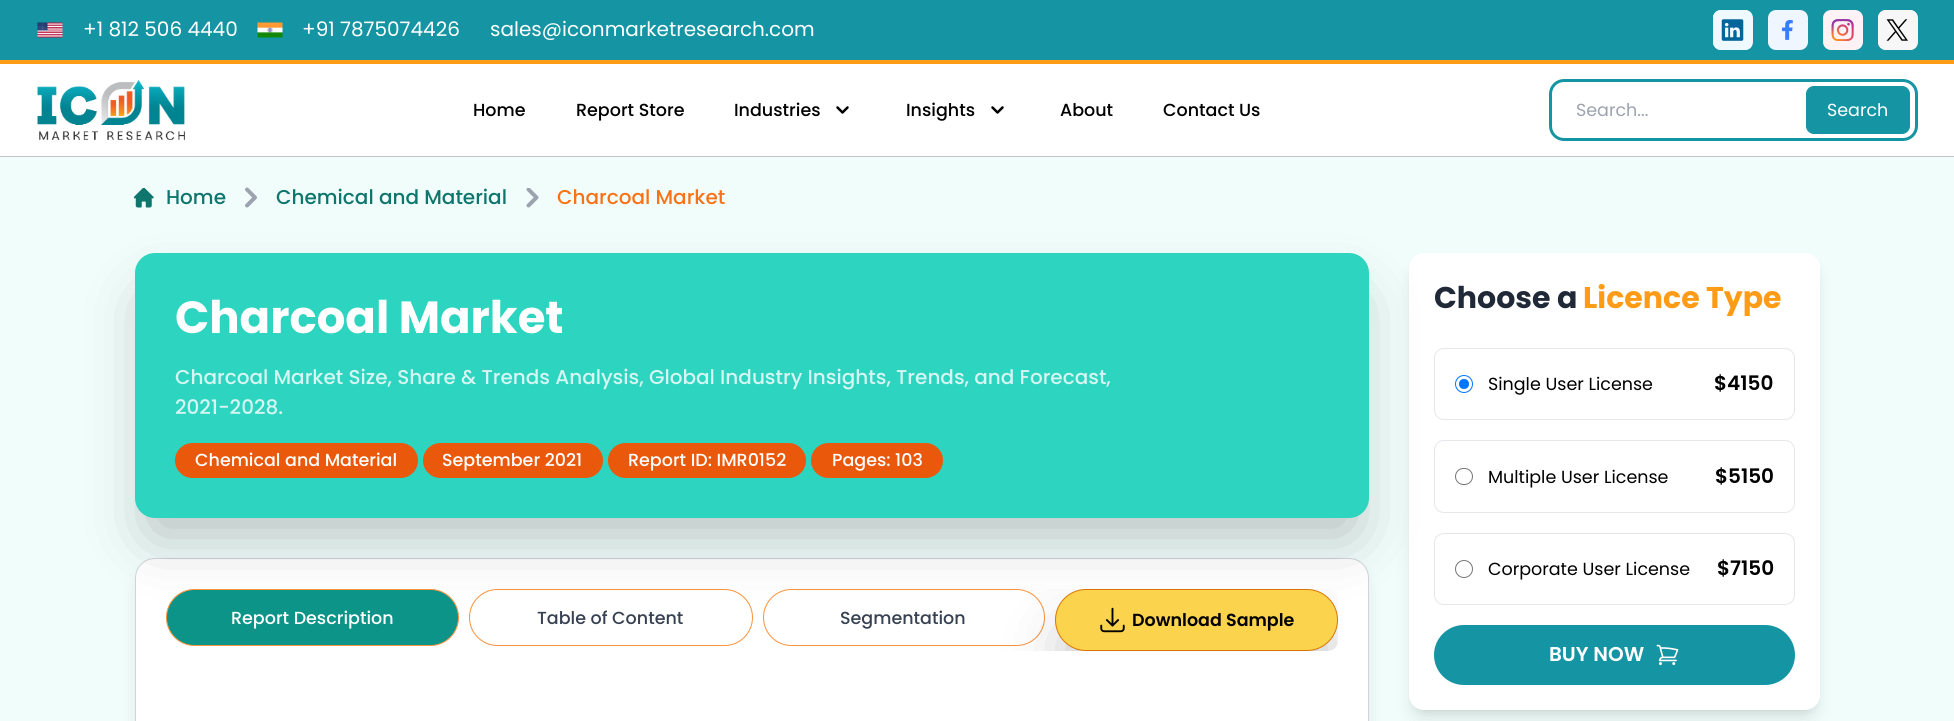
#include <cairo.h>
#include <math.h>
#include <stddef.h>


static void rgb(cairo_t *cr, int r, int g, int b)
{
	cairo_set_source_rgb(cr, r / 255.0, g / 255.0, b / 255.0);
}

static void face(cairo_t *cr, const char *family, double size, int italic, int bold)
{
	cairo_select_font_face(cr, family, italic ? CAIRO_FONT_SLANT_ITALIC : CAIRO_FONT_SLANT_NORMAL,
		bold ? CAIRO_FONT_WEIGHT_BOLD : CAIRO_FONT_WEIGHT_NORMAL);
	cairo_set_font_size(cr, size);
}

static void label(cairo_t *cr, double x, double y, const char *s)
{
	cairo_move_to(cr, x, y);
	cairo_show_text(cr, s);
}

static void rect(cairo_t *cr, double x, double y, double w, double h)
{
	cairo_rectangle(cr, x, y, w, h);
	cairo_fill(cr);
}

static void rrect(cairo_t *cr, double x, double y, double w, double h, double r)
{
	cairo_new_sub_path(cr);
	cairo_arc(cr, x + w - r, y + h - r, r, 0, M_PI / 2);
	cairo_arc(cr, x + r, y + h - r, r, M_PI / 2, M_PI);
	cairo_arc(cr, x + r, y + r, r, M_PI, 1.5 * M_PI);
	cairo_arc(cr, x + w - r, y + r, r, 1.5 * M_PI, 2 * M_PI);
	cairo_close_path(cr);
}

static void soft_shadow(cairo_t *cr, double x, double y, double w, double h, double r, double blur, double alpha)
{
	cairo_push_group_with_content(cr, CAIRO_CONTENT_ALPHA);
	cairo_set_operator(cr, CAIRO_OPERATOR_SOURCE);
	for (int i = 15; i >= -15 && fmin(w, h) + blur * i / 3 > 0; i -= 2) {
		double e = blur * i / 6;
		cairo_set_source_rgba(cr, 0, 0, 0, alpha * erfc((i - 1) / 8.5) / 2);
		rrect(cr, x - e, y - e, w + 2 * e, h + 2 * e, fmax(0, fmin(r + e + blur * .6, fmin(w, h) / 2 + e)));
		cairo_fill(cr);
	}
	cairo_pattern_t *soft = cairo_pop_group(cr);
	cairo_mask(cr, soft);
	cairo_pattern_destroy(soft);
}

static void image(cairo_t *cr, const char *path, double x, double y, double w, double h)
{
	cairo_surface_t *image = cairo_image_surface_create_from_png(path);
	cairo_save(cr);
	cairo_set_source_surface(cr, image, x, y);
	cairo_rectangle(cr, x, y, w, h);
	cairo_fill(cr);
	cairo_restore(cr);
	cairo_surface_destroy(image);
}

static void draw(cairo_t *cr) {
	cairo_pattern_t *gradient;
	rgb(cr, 240, 253, 250);
	cairo_paint(cr);
	rgb(cr, 21, 148, 163);
	rect(cr, 0, 0, 1954, 60);
	rgb(cr, 255, 155, 20);
	rect(cr, 0, 60, 1954, 4);
	image(cr, "image0.png", 37, 22, 26, 16);
	face(cr, "Poppins", 20, 0, 0);
	rgb(cr, 255, 255, 255);
	label(cr, 83, 36, "+1 812 506 4440");
	image(cr, "image1.png", 257, 22, 26, 16);
	label(cr, 302, 36, "+91 7875074426");
	label(cr, 490, 36, "sales@iconmarketresearch.com");
	gradient = cairo_pattern_create_linear(1713, 50, 1753, 10);
	cairo_pattern_add_color_stop_rgba(gradient, 0, 0.996, 0.949, 0.949, 1);
	cairo_pattern_add_color_stop_rgba(gradient, 1, 0.992, 0.949, 0.973, 1);
	cairo_set_source(cr, gradient);
	cairo_pattern_destroy(gradient);
	rrect(cr, 1713, 10, 40, 40, 8);
	cairo_fill(cr);
	image(cr, "image2.png", 1713, 10, 39, 40);
	rgb(cr, 239, 246, 255);
	rrect(cr, 1768, 10, 40, 40, 8);
	cairo_fill(cr);
	image(cr, "image3.png", 1782, 20, 11, 20);
	gradient = cairo_pattern_create_linear(1823, 50, 1863, 10);
	cairo_pattern_add_color_stop_rgba(gradient, 0, 0.996, 0.949, 0.949, 1);
	cairo_pattern_add_color_stop_rgba(gradient, 1, 0.992, 0.949, 0.973, 1);
	cairo_set_source(cr, gradient);
	cairo_pattern_destroy(gradient);
	rrect(cr, 1823, 10, 40, 40, 8);
	cairo_fill(cr);
	image(cr, "image4.png", 1831, 19, 23, 22);
	gradient = cairo_pattern_create_linear(1878, 50, 1918, 10);
	cairo_pattern_add_color_stop_rgba(gradient, 0, 0.996, 0.949, 0.949, 1);
	cairo_pattern_add_color_stop_rgba(gradient, 1, 0.992, 0.949, 0.973, 1);
	cairo_set_source(cr, gradient);
	cairo_pattern_destroy(gradient);
	rrect(cr, 1878, 10, 40, 40, 8);
	cairo_fill(cr);
	image(cr, "image5.png", 1878, 10, 39, 40);
	rgb(cr, 255, 255, 255);
	rect(cr, 0, 64, 1954, 92);
	rgb(cr, 195, 196, 199);
	rect(cr, 0, 156, 1954, 1);
	image(cr, "image6.png", 37, 80, 148, 60);
	face(cr, "Poppins Medium", 17.5, 0, 0);
	rgb(cr, 0, 0, 0);
	label(cr, 473, 116, "Home");
	label(cr, 576, 116, "Report Store");
	label(cr, 734, 116, "Industries");
	image(cr, "image7.png", 836, 106, 13, 8);
	label(cr, 906, 116, "Insights");
	image(cr, "image7.png", 991, 106, 13, 8);
	label(cr, 1060, 116, "About");
	label(cr, 1163, 116, "Contact Us");
	rrect(cr, 1550.5, 80.5, 366, 59, 13.5);
	rgb(cr, 21, 148, 163);
	cairo_set_line_width(cr, 3);
	cairo_stroke(cr);
	face(cr, "Poppins", 17.5, 0, 0);
	rgb(cr, 156, 163, 175);
	label(cr, 1576, 116, "Search...");
	rgb(cr, 21, 148, 163);
	rrect(cr, 1806.5, 86.5, 103, 47, 7.5);
	cairo_fill_preserve(cr);
	cairo_set_line_width(cr, 1);
	cairo_stroke(cr);
	rgb(cr, 255, 255, 255);
	label(cr, 1827, 116, "Search");
	image(cr, "image8.png", 134, 188, 20, 20);
	face(cr, "Poppins Medium", 20, 0, 0);
	rgb(cr, 15, 118, 110);
	label(cr, 166, 204, "Home");
	cairo_new_path(cr);
	cairo_move_to(cr, 247, 205.5);
	cairo_line_to(cr, 255, 197.5);
	cairo_line_to(cr, 247, 189.5);
	rgb(cr, 156, 163, 175);
	cairo_set_line_width(cr, 4);
	cairo_set_line_cap(cr, CAIRO_LINE_CAP_ROUND);
	cairo_set_line_join(cr, CAIRO_LINE_JOIN_ROUND);
	cairo_stroke(cr);
	rgb(cr, 15, 118, 110);
	label(cr, 276, 204, "Chemical and Material");
	cairo_save(cr);
	cairo_rectangle(cr, 523, 188, 20, 20);
	cairo_clip(cr);
	cairo_new_path(cr);
	cairo_move_to(cr, 528.5, 205.5);
	cairo_line_to(cr, 536.5, 197.5);
	cairo_line_to(cr, 528.5, 189.5);
	rgb(cr, 156, 163, 175);
	cairo_stroke(cr);
	cairo_restore(cr);
	rgb(cr, 249, 115, 22);
	label(cr, 557, 204, "Charcoal Market");
	rgb(cr, 0, 0, 0);
	soft_shadow(cr, 139, 574, 1226, 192, 16, 9.5, 0.1);
	rgb(cr, 255, 255, 255);
	rrect(cr, 135.5, 558.5, 1233, 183, 19.5);
	cairo_fill_preserve(cr);
	rgb(cr, 209, 213, 219);
	cairo_set_line_width(cr, 1);
	cairo_set_line_cap(cr, CAIRO_LINE_CAP_BUTT);
	cairo_set_line_join(cr, CAIRO_LINE_JOIN_MITER);
	cairo_stroke(cr);
	rgb(cr, 0, 0, 0);
	soft_shadow(cr, 1414, 263, 401, 447, 10, 4, 0.1);
	soft_shadow(cr, 1413, 269, 403, 450, 11, 9.5, 0.1);
	rgb(cr, 255, 255, 255);
	rrect(cr, 1409, 253, 411, 457, 15);
	cairo_fill(cr);
	rrect(cr, 1434.5, 348.5, 360, 71, 9.5);
	rgb(cr, 229, 231, 235);
	cairo_stroke(cr);
	rrect(cr, 1434.5, 440.5, 360, 72, 9.5);
	cairo_stroke(cr);
	rrect(cr, 1434.5, 533.5, 360, 71, 9.5);
	cairo_stroke(cr);
	rgb(cr, 21, 148, 163);
	rrect(cr, 1434, 625, 361, 60, 30);
	cairo_fill(cr);
	rgb(cr, 0, 0, 0);
	soft_shadow(cr, 150, 299, 1204, 235, 5, 31, 0.25);
	rgb(cr, 45, 212, 191);
	rrect(cr, 135, 253, 1234, 265, 20);
	cairo_fill(cr);
	face(cr, "Poppins", 45, 0, 1);
	rgb(cr, 255, 255, 255);
	label(cr, 175, 333, "Charcoal Market");
	face(cr, "Poppins Medium", 20, 0, 0);
	rgb(cr, 213, 246, 242);
	label(cr, 175, 384, "Charcoal Market Size, Share & Trends Analysis, Global Industry Insights, Trends, and Forecast,");
	label(cr, 175, 414, "2021-2028.");
	rgb(cr, 234, 88, 12);
	rrect(cr, 175, 443, 243, 35, 17.5);
	cairo_fill(cr);
	face(cr, "Poppins Medium", 17.5, 0, 0);
	rgb(cr, 255, 255, 255);
	label(cr, 195, 466, "Chemical and Material");
	rgb(cr, 234, 88, 12);
	rrect(cr, 423, 443, 180, 35, 17.5);
	cairo_fill(cr);
	rgb(cr, 255, 255, 255);
	label(cr, 442, 466, "September 2021");
	rgb(cr, 234, 88, 12);
	rrect(cr, 608, 443, 198, 35, 17.5);
	cairo_fill(cr);
	rgb(cr, 255, 255, 255);
	label(cr, 628, 466, "Report ID: IMR0152");
	rgb(cr, 234, 88, 12);
	rrect(cr, 811, 443, 132, 35, 17.5);
	cairo_fill(cr);
	rgb(cr, 255, 255, 255);
	label(cr, 832, 466, "Pages: 103");
	rgb(cr, 13, 148, 136);
	rrect(cr, 166.5, 589.5, 292, 56, 28);
	cairo_fill_preserve(cr);
	rgb(cr, 251, 146, 60);
	cairo_stroke(cr);
	rgb(cr, 255, 255, 255);
	label(cr, 231, 624, "Report Description");
	rrect(cr, 469.5, 589.5, 283, 56, 28);
	rgb(cr, 251, 146, 60);
	cairo_stroke(cr);
	rgb(cr, 55, 65, 81);
	label(cr, 537, 624, "Table of Content");
	rrect(cr, 763.5, 589.5, 281, 56, 28);
	rgb(cr, 251, 146, 60);
	cairo_stroke(cr);
	rgb(cr, 55, 65, 81);
	label(cr, 840, 624, "Segmentation");
	cairo_save(cr);
	rrect(cr, 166, 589, 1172, 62, 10);
	cairo_clip(cr);
	rgb(cr, 0, 0, 0);
	soft_shadow(cr, 1070, 635, 253, 33, 16.5, 31, 0.25);
	cairo_restore(cr);
	rgb(cr, 252, 211, 77);
	rrect(cr, 1055.5, 589.5, 282, 61, 30.5);
	cairo_fill_preserve(cr);
	rgb(cr, 217, 119, 6);
	cairo_stroke(cr);
	image(cr, "image9.png", 1100, 607, 25, 26);
	face(cr, "Poppins SemiBold", 17.5, 0, 0);
	rgb(cr, 0, 0, 0);
	label(cr, 1132, 626, "Download Sample");
	face(cr, "Poppins", 30, 0, 1);
	rgb(cr, 31, 41, 55);
	label(cr, 1434, 308, "Choose a");
	rgb(cr, 255, 155, 20);
	label(cr, 1583, 308, "Licence Type");
	cairo_new_path(cr);
	cairo_arc(cr, 1464, 384, 8.5, 0, 2 * M_PI);
	rgb(cr, 0, 117, 255);
	cairo_stroke(cr);
	cairo_arc(cr, 1464, 384, 5, 0, 2 * M_PI);
	cairo_fill(cr);
	face(cr, "Poppins", 17.5, 0, 0);
	rgb(cr, 0, 0, 0);
	label(cr, 1488, 390, "Single User License");
	face(cr, "Poppins SemiBold", 20, 0, 0);
	label(cr, 1714, 390, "$4150");
	rrect(cr, 1455.5, 468.5, 17, 16, 8);
	rgb(cr, 118, 118, 118);
	cairo_stroke(cr);
	face(cr, "Poppins", 17.5, 0, 0);
	rgb(cr, 0, 0, 0);
	label(cr, 1488, 483, "Multiple User License");
	face(cr, "Poppins SemiBold", 20, 0, 0);
	label(cr, 1715, 483, "$5150");
	cairo_new_path(cr);
	cairo_arc(cr, 1464, 569, 8.5, 0, 2 * M_PI);
	rgb(cr, 118, 118, 118);
	cairo_stroke(cr);
	face(cr, "Poppins", 17.5, 0, 0);
	rgb(cr, 0, 0, 0);
	label(cr, 1488, 575, "Corporate User License");
	face(cr, "Poppins SemiBold", 20, 0, 0);
	label(cr, 1717, 575, "$7150");
	rgb(cr, 255, 255, 255);
	label(cr, 1549, 661, "BUY NOW");
	image(cr, "image10.png", 1656, 644, 23, 22);
}

int main(void) {
	cairo_surface_t *surface = cairo_image_surface_create(CAIRO_FORMAT_RGB24, 1954, 721);
	cairo_t *cr = cairo_create(surface);
	cairo_font_options_t *options = cairo_font_options_create();
	cairo_font_options_set_hint_metrics(options, CAIRO_HINT_METRICS_OFF);
	cairo_font_options_set_hint_style(options, CAIRO_HINT_STYLE_NONE);
	cairo_set_font_options(cr, options);
	cairo_set_miter_limit(cr, 4);
	draw(cr);
	cairo_surface_write_to_png(surface, "render.png");
	cairo_font_options_destroy(options);
	cairo_destroy(cr);
	cairo_surface_destroy(surface);
	return 0;
}
